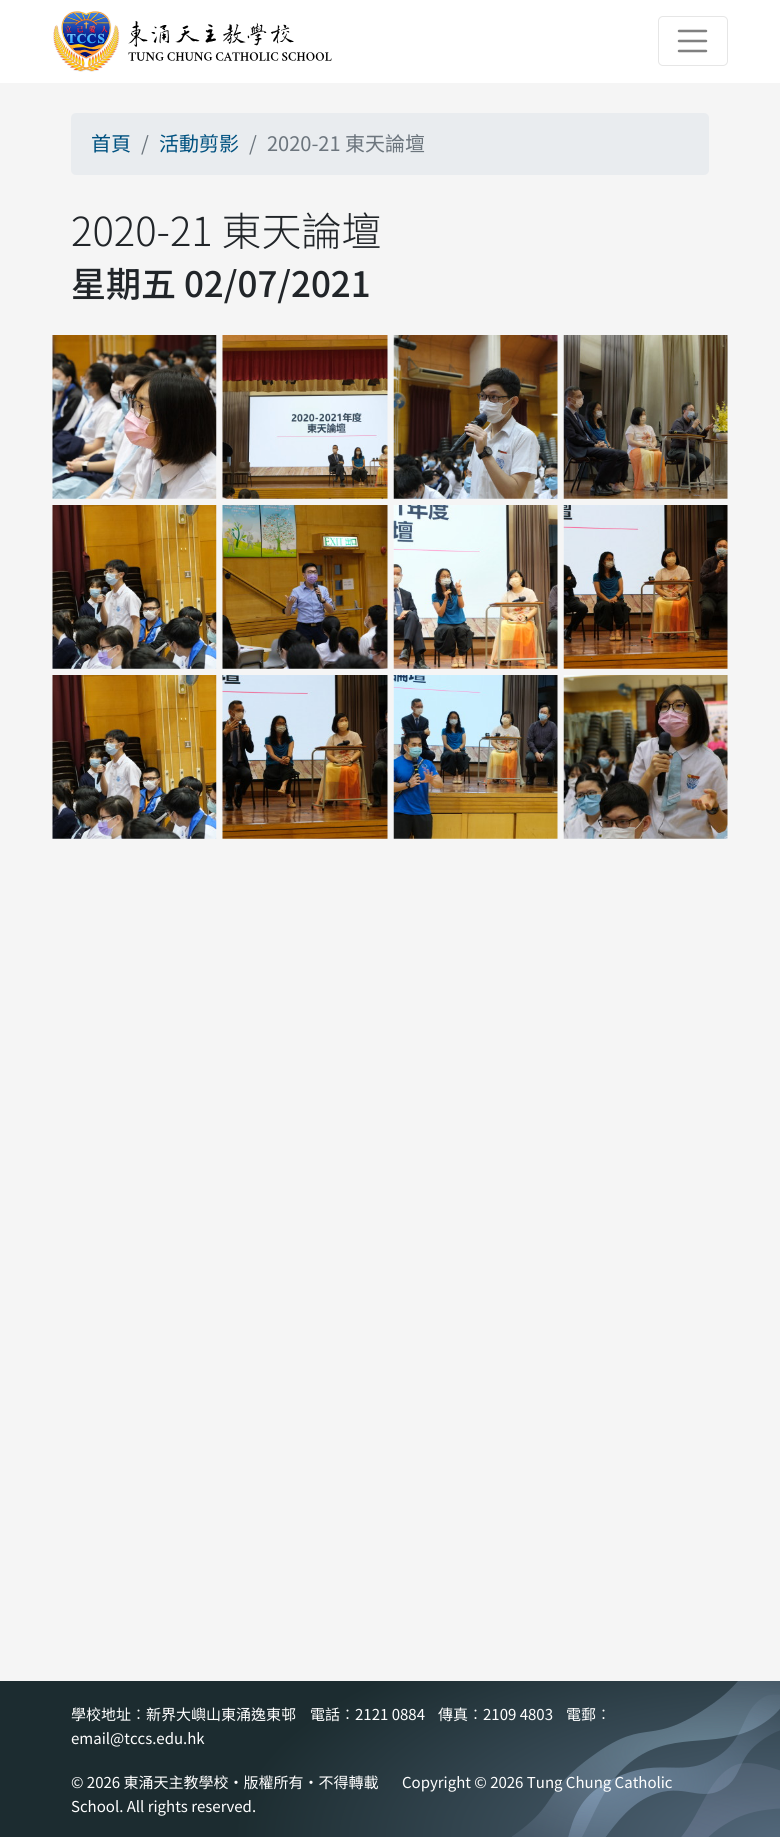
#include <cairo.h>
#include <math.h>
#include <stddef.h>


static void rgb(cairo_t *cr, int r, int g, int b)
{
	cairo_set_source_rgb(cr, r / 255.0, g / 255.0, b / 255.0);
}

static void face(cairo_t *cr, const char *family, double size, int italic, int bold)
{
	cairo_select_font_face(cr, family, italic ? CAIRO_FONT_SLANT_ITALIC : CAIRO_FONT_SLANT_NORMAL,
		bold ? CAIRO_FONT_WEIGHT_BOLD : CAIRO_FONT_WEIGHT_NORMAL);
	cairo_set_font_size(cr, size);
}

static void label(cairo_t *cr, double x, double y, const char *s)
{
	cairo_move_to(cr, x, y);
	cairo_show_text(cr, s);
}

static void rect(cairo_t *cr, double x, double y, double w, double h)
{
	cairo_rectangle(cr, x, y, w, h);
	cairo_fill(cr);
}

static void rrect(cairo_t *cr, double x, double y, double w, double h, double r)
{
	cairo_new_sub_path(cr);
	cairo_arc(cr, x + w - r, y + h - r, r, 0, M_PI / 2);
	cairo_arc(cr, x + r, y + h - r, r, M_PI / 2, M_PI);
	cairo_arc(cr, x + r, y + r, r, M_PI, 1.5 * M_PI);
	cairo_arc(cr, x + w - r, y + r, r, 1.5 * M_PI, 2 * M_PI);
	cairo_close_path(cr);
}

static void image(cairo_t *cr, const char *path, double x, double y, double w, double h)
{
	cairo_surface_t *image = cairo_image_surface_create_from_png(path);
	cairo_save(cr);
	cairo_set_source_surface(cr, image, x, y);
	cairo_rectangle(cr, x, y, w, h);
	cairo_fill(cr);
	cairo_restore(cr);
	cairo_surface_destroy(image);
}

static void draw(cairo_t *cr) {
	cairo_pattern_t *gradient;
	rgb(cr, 245, 245, 245);
	cairo_paint(cr);
	rgb(cr, 255, 255, 255);
	rect(cr, 0, 0, 780, 83);
	image(cr, "image0.png", 53, 11, 279, 61);
	rrect(cr, 658.5, 16.5, 69, 49, 4.5);
	rgb(cr, 230, 230, 230);
	cairo_set_line_width(cr, 1);
	cairo_stroke(cr);
	cairo_new_path(cr);
	cairo_move_to(cr, 679, 31);
	cairo_line_to(cr, 706, 31);
	cairo_move_to(cr, 679, 41);
	cairo_line_to(cr, 706, 41);
	cairo_move_to(cr, 679, 51);
	cairo_line_to(cr, 706, 51);
	rgb(cr, 128, 128, 128);
	cairo_set_line_width(cr, 2.5);
	cairo_set_line_cap(cr, CAIRO_LINE_CAP_ROUND);
	cairo_stroke(cr);
	rgb(cr, 233, 236, 239);
	rrect(cr, 71, 113, 638, 62, 5);
	cairo_fill(cr);
	face(cr, "Noto Sans TC", 20, 0, 0);
	rgb(cr, 0, 81, 128);
	label(cr, 91, 151, "首頁");
	rgb(cr, 108, 117, 125);
	label(cr, 141, 151, "/");
	rgb(cr, 0, 81, 128);
	label(cr, 159, 151, "活動剪影");
	rgb(cr, 108, 117, 125);
	label(cr, 249, 151, "/");
	label(cr, 267, 151, "2020-21 東天論壇");
	face(cr, "Noto Sans TC Light", 40, 0, 0);
	rgb(cr, 33, 37, 41);
	label(cr, 71, 246, "2020-21 東天論壇");
	face(cr, "Noto Sans TC Medium", 35, 0, 0);
	label(cr, 71, 297, "星期五 02/07/2021");
	image(cr, "image1.png", 52, 335, 165, 164);
	image(cr, "image2.png", 222, 335, 166, 164);
	image(cr, "image3.png", 393, 335, 165, 164);
	image(cr, "image4.png", 563, 335, 165, 164);
	image(cr, "image5.png", 52, 505, 165, 164);
	image(cr, "image6.png", 222, 505, 166, 164);
	image(cr, "image7.png", 393, 505, 165, 164);
	image(cr, "image8.png", 563, 505, 165, 164);
	image(cr, "image5.png", 52, 675, 165, 164);
	image(cr, "image9.png", 222, 675, 166, 164);
	image(cr, "image10.png", 393, 675, 165, 164);
	image(cr, "image11.png", 563, 675, 165, 164);
	gradient = cairo_pattern_create_radial(0, 0, 0, 0, 0, 1);
	cairo_pattern_set_matrix(gradient, &(cairo_matrix_t){1.0 / 546, 0, 0, 1.0 / 234, -1.0 * 780 / 546, -1.0 * 1838 / 234});
	cairo_pattern_add_color_stop_rgba(gradient, 0, 0.322, 0.404, 0.478, 1);
	cairo_pattern_add_color_stop_rgba(gradient, 1, 0.11, 0.173, 0.188, 1);
	cairo_set_source(cr, gradient);
	cairo_pattern_destroy(gradient);
	rect(cr, 0, 1681, 780, 156);
	image(cr, "image12.png", 512, 1681, 268, 156);
	face(cr, "Noto Sans TC", 15, 0, 0);
	rgb(cr, 255, 255, 255);
	label(cr, 71, 1720, "學校地址︰新界大嶼山東涌逸東邨");
	label(cr, 310, 1720, "電話︰2121 0884");
	label(cr, 438, 1720, "傳真︰2109 4803");
	label(cr, 566, 1720, "電郵︰");
	label(cr, 71, 1744, "email@tccs.edu.hk");
	label(cr, 71, 1788, "© 2026 東涌天主教學校・版權所有・不得轉載");
	label(cr, 402, 1788, "Copyright © 2026 Tung Chung Catholic");
	label(cr, 71, 1812, "School. All rights reserved.");
}

int main(void) {
	cairo_surface_t *surface = cairo_image_surface_create(CAIRO_FORMAT_RGB24, 780, 1837);
	cairo_t *cr = cairo_create(surface);
	cairo_font_options_t *options = cairo_font_options_create();
	cairo_font_options_set_hint_metrics(options, CAIRO_HINT_METRICS_OFF);
	cairo_font_options_set_hint_style(options, CAIRO_HINT_STYLE_NONE);
	cairo_set_font_options(cr, options);
	cairo_set_miter_limit(cr, 4);
	draw(cr);
	cairo_surface_write_to_png(surface, "render.png");
	cairo_font_options_destroy(options);
	cairo_destroy(cr);
	cairo_surface_destroy(surface);
	return 0;
}
